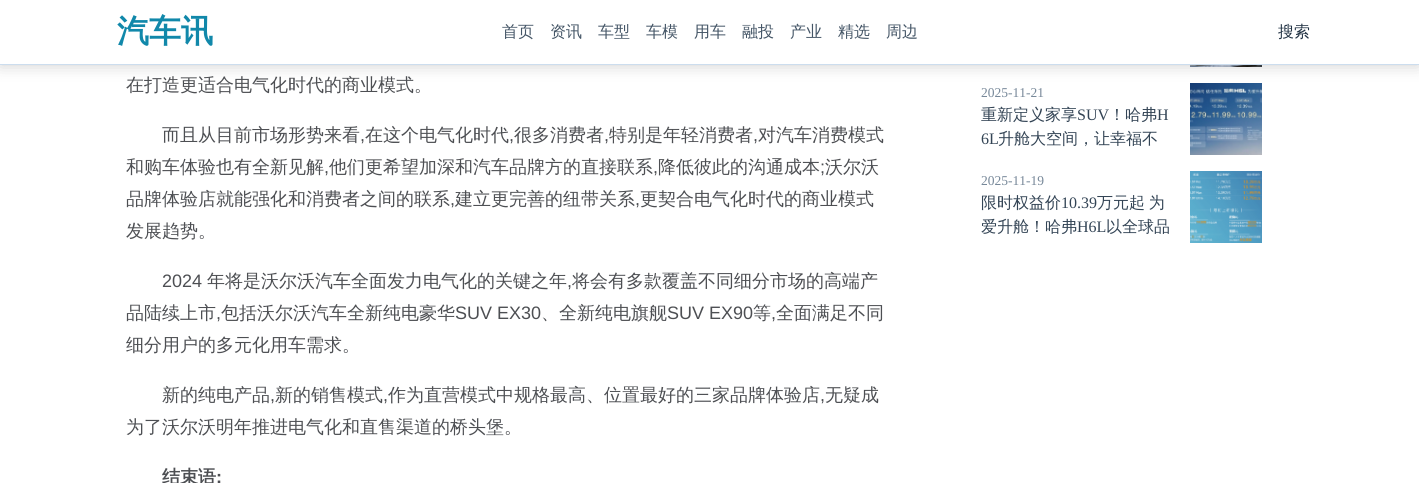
#include <cairo.h>
#include <math.h>
#include <stddef.h>


static void rgb(cairo_t *cr, int r, int g, int b)
{
	cairo_set_source_rgb(cr, r / 255.0, g / 255.0, b / 255.0);
}

static void face(cairo_t *cr, const char *family, double size, int italic, int bold)
{
	cairo_select_font_face(cr, family, italic ? CAIRO_FONT_SLANT_ITALIC : CAIRO_FONT_SLANT_NORMAL,
		bold ? CAIRO_FONT_WEIGHT_BOLD : CAIRO_FONT_WEIGHT_NORMAL);
	cairo_set_font_size(cr, size);
}

static void label(cairo_t *cr, double x, double y, const char *s)
{
	cairo_move_to(cr, x, y);
	cairo_show_text(cr, s);
}

static void tracked(cairo_t *cr, double x, double y, const char *s, double letter, double word)
{
	cairo_move_to(cr, x, y);
	while (*s) {
		char ch[5] = {0};
		int n = 0;
		do ch[n++] = *s++; while ((*s & 0xC0) == 0x80);
		cairo_show_text(cr, ch);
		cairo_rel_move_to(cr, letter + word * (*ch == ' '), 0);
	}
}

static void rect(cairo_t *cr, double x, double y, double w, double h)
{
	cairo_rectangle(cr, x, y, w, h);
	cairo_fill(cr);
}

static void rrect(cairo_t *cr, double x, double y, double w, double h, double r)
{
	cairo_new_sub_path(cr);
	cairo_arc(cr, x + w - r, y + h - r, r, 0, M_PI / 2);
	cairo_arc(cr, x + r, y + h - r, r, M_PI / 2, M_PI);
	cairo_arc(cr, x + r, y + r, r, M_PI, 1.5 * M_PI);
	cairo_arc(cr, x + w - r, y + r, r, 1.5 * M_PI, 2 * M_PI);
	cairo_close_path(cr);
}

static void soft_shadow(cairo_t *cr, double x, double y, double w, double h, double r, double blur, double alpha)
{
	cairo_push_group_with_content(cr, CAIRO_CONTENT_ALPHA);
	cairo_set_operator(cr, CAIRO_OPERATOR_SOURCE);
	for (int i = 15; i >= -15 && fmin(w, h) + blur * i / 3 > 0; i -= 2) {
		double e = blur * i / 6;
		cairo_set_source_rgba(cr, 0, 0, 0, alpha * erfc((i - 1) / 8.5) / 2);
		rrect(cr, x - e, y - e, w + 2 * e, h + 2 * e, fmax(0, fmin(r + e + blur * .6, fmin(w, h) / 2 + e)));
		cairo_fill(cr);
	}
	cairo_pattern_t *soft = cairo_pop_group(cr);
	cairo_mask(cr, soft);
	cairo_pattern_destroy(soft);
}

static void image(cairo_t *cr, const char *path, double x, double y, double w, double h)
{
	cairo_surface_t *image = cairo_image_surface_create_from_png(path);
	cairo_save(cr);
	cairo_set_source_surface(cr, image, x, y);
	cairo_rectangle(cr, x, y, w, h);
	cairo_fill(cr);
	cairo_restore(cr);
	cairo_surface_destroy(image);
}

static void draw(cairo_t *cr) {
	rgb(cr, 255, 255, 255);
	cairo_paint(cr);
	image(cr, "image0.png", 1190, 65, 72, 2);
	image(cr, "image1.png", 1190, 83, 72, 72);
	rgb(cr, 0, 0, 0);
	soft_shadow(cr, 0, 0, 1419, 65, 0, 8, 0.2);
	rgb(cr, 255, 255, 255);
	rect(cr, 0, 0, 1419, 64);
	rgb(cr, 204, 221, 238);
	rect(cr, 0, 64, 1419, 1);
	face(cr, "WenQuanYi Zen Hei", 32, 0, 1);
	rgb(cr, 17, 136, 170);
	label(cr, 117, 42, "汽车讯");
	face(cr, "WenQuanYi Zen Hei Medium", 16, 0, 0);
	rgb(cr, 68, 85, 102);
	label(cr, 502, 37, "首页");
	label(cr, 550, 37, "资讯");
	label(cr, 598, 37, "车型");
	label(cr, 646, 37, "车模");
	label(cr, 694, 37, "用车");
	label(cr, 742, 37, "融投");
	label(cr, 790, 37, "产业");
	label(cr, 838, 37, "精选");
	label(cr, 886, 37, "周边");
	rgb(cr, 34, 51, 68);
	label(cr, 1278, 37, "搜索");
	face(cr, "WenQuanYi Zen Hei Medium", 18, 0, 0);
	rgb(cr, 77, 79, 83);
	label(cr, 126, 91, "在打造更适合电气化时代的商业模式。");
	label(cr, 162, 141, "而且从目前市场形势来看");
	face(cr, "Liberation Sans", 18, 0, 0);
	label(cr, 360, 141, ",");
	face(cr, "WenQuanYi Zen Hei Medium", 18, 0, 0);
	label(cr, 365, 141, "在这个电气化时代");
	face(cr, "Liberation Sans", 18, 0, 0);
	label(cr, 509, 141, ",");
	face(cr, "WenQuanYi Zen Hei Medium", 18, 0, 0);
	label(cr, 514, 141, "很多消费者");
	face(cr, "Liberation Sans", 18, 0, 0);
	label(cr, 604, 141, ",");
	face(cr, "WenQuanYi Zen Hei Medium", 18, 0, 0);
	label(cr, 609, 141, "特别是年轻消费者");
	face(cr, "Liberation Sans", 18, 0, 0);
	label(cr, 753, 141, ",");
	face(cr, "WenQuanYi Zen Hei Medium", 18, 0, 0);
	label(cr, 758, 141, "对汽车消费模式");
	label(cr, 126, 173, "和购车体验也有全新见解");
	face(cr, "Liberation Sans", 18, 0, 0);
	label(cr, 324, 173, ",");
	face(cr, "WenQuanYi Zen Hei Medium", 18, 0, 0);
	label(cr, 329, 173, "他们更希望加深和汽车品牌方的直接联系");
	face(cr, "Liberation Sans", 18, 0, 0);
	label(cr, 653, 173, ",");
	face(cr, "WenQuanYi Zen Hei Medium", 18, 0, 0);
	label(cr, 658, 173, "降低彼此的沟通成本");
	face(cr, "Liberation Sans", 18, 0, 0);
	label(cr, 820, 173, ";");
	face(cr, "WenQuanYi Zen Hei Medium", 18, 0, 0);
	label(cr, 825, 173, "沃尔沃");
	label(cr, 126, 205, "品牌体验店就能强化和消费者之间的联系");
	face(cr, "Liberation Sans", 18, 0, 0);
	label(cr, 450, 205, ",");
	face(cr, "WenQuanYi Zen Hei Medium", 18, 0, 0);
	label(cr, 455, 205, "建立更完善的纽带关系");
	face(cr, "Liberation Sans", 18, 0, 0);
	label(cr, 635, 205, ",");
	face(cr, "WenQuanYi Zen Hei Medium", 18, 0, 0);
	label(cr, 640, 205, "更契合电气化时代的商业模式");
	label(cr, 126, 237, "发展趋势。");
	face(cr, "Liberation Sans", 18, 0, 0);
	label(cr, 162, 287, "2024");
	face(cr, "WenQuanYi Zen Hei Medium", 18, 0, 0);
	label(cr, 207, 287, "年将是沃尔沃汽车全面发力电气化的关键之年");
	face(cr, "Liberation Sans", 18, 0, 0);
	label(cr, 567, 287, ",");
	face(cr, "WenQuanYi Zen Hei Medium", 18, 0, 0);
	label(cr, 572, 287, "将会有多款覆盖不同细分市场的高端产");
	label(cr, 126, 319, "品陆续上市");
	face(cr, "Liberation Sans", 18, 0, 0);
	label(cr, 216, 319, ",");
	face(cr, "WenQuanYi Zen Hei Medium", 18, 0, 0);
	label(cr, 221, 319, "包括沃尔沃汽车全新纯电豪华");
	face(cr, "Liberation Sans", 18, 0, 0);
	label(cr, 455, 319, "SUV EX30");
	face(cr, "WenQuanYi Zen Hei Medium", 18, 0, 0);
	label(cr, 541, 319, "、全新纯电旗舰");
	face(cr, "Liberation Sans", 18, 0, 0);
	label(cr, 667, 319, "SUV EX90");
	face(cr, "WenQuanYi Zen Hei Medium", 18, 0, 0);
	label(cr, 753, 319, "等");
	face(cr, "Liberation Sans", 18, 0, 0);
	label(cr, 771, 319, ",");
	face(cr, "WenQuanYi Zen Hei Medium", 18, 0, 0);
	label(cr, 776, 319, "全面满足不同");
	label(cr, 126, 351, "细分用户的多元化用车需求。");
	label(cr, 162, 401, "新的纯电产品");
	face(cr, "Liberation Sans", 18, 0, 0);
	label(cr, 270, 401, ",");
	face(cr, "WenQuanYi Zen Hei Medium", 18, 0, 0);
	label(cr, 275, 401, "新的销售模式");
	face(cr, "Liberation Sans", 18, 0, 0);
	label(cr, 383, 401, ",");
	face(cr, "WenQuanYi Zen Hei Medium", 18, 0, 0);
	label(cr, 388, 401, "作为直营模式中规格最高、位置最好的三家品牌体验店");
	face(cr, "Liberation Sans", 18, 0, 0);
	label(cr, 820, 401, ",");
	face(cr, "WenQuanYi Zen Hei Medium", 18, 0, 0);
	label(cr, 825, 401, "无疑成");
	label(cr, 126, 433, "为了沃尔沃明年推进电气化和直售渠道的桥头堡。");
	face(cr, "WenQuanYi Zen Hei", 18, 0, 1);
	label(cr, 162, 483, "结束语");
	face(cr, "Liberation Sans", 18, 0, 1);
	label(cr, 216, 483, ":");
	face(cr, "Liberation Serif", 13.5, 0, 0);
	rgb(cr, 119, 136, 153);
	label(cr, 981, 97, "2025-11-21");
	face(cr, "WenQuanYi Zen Hei Medium", 16, 0, 0);
	rgb(cr, 51, 68, 85);
	label(cr, 981, 120, "重新定义家享");
	face(cr, "Liberation Serif", 16, 0, 0);
	label(cr, 1077, 120, "SUV");
	face(cr, "WenQuanYi Zen Hei Medium", 16, 0, 0);
	label(cr, 1109, 120, "！哈弗");
	face(cr, "Liberation Serif", 16, 0, 0);
	label(cr, 1157, 120, "H");
	label(cr, 981, 144, "6L");
	face(cr, "WenQuanYi Zen Hei Medium", 16, 0, 0);
	label(cr, 998, 144, "升舱大空间，让幸福不");
	face(cr, "Liberation Serif", 13.5, 0, 0);
	rgb(cr, 119, 136, 153);
	label(cr, 981, 185, "2025-11-19");
	image(cr, "image2.png", 1190, 171, 72, 72);
	face(cr, "WenQuanYi Zen Hei Medium", 16, 0, 0);
	rgb(cr, 51, 68, 85);
	label(cr, 981, 208, "限时权益价");
	face(cr, "Liberation Serif", 16, 0, 0);
	label(cr, 1061, 208, "10.39");
	face(cr, "WenQuanYi Zen Hei Medium", 16, 0, 0);
	tracked(cr, 1097, 208, "万元起 为", 0, -1);
	label(cr, 981, 232, "爱升舱！哈弗");
	face(cr, "Liberation Serif", 16, 0, 0);
	label(cr, 1077, 232, "H6L");
	face(cr, "WenQuanYi Zen Hei Medium", 16, 0, 0);
	label(cr, 1106, 232, "以全球品");
}

int main(void) {
	cairo_surface_t *surface = cairo_image_surface_create(CAIRO_FORMAT_RGB24, 1419, 483);
	cairo_t *cr = cairo_create(surface);
	cairo_font_options_t *options = cairo_font_options_create();
	cairo_font_options_set_hint_metrics(options, CAIRO_HINT_METRICS_OFF);
	cairo_font_options_set_hint_style(options, CAIRO_HINT_STYLE_NONE);
	cairo_set_font_options(cr, options);
	cairo_set_miter_limit(cr, 4);
	draw(cr);
	cairo_surface_write_to_png(surface, "render.png");
	cairo_font_options_destroy(options);
	cairo_destroy(cr);
	cairo_surface_destroy(surface);
	return 0;
}
